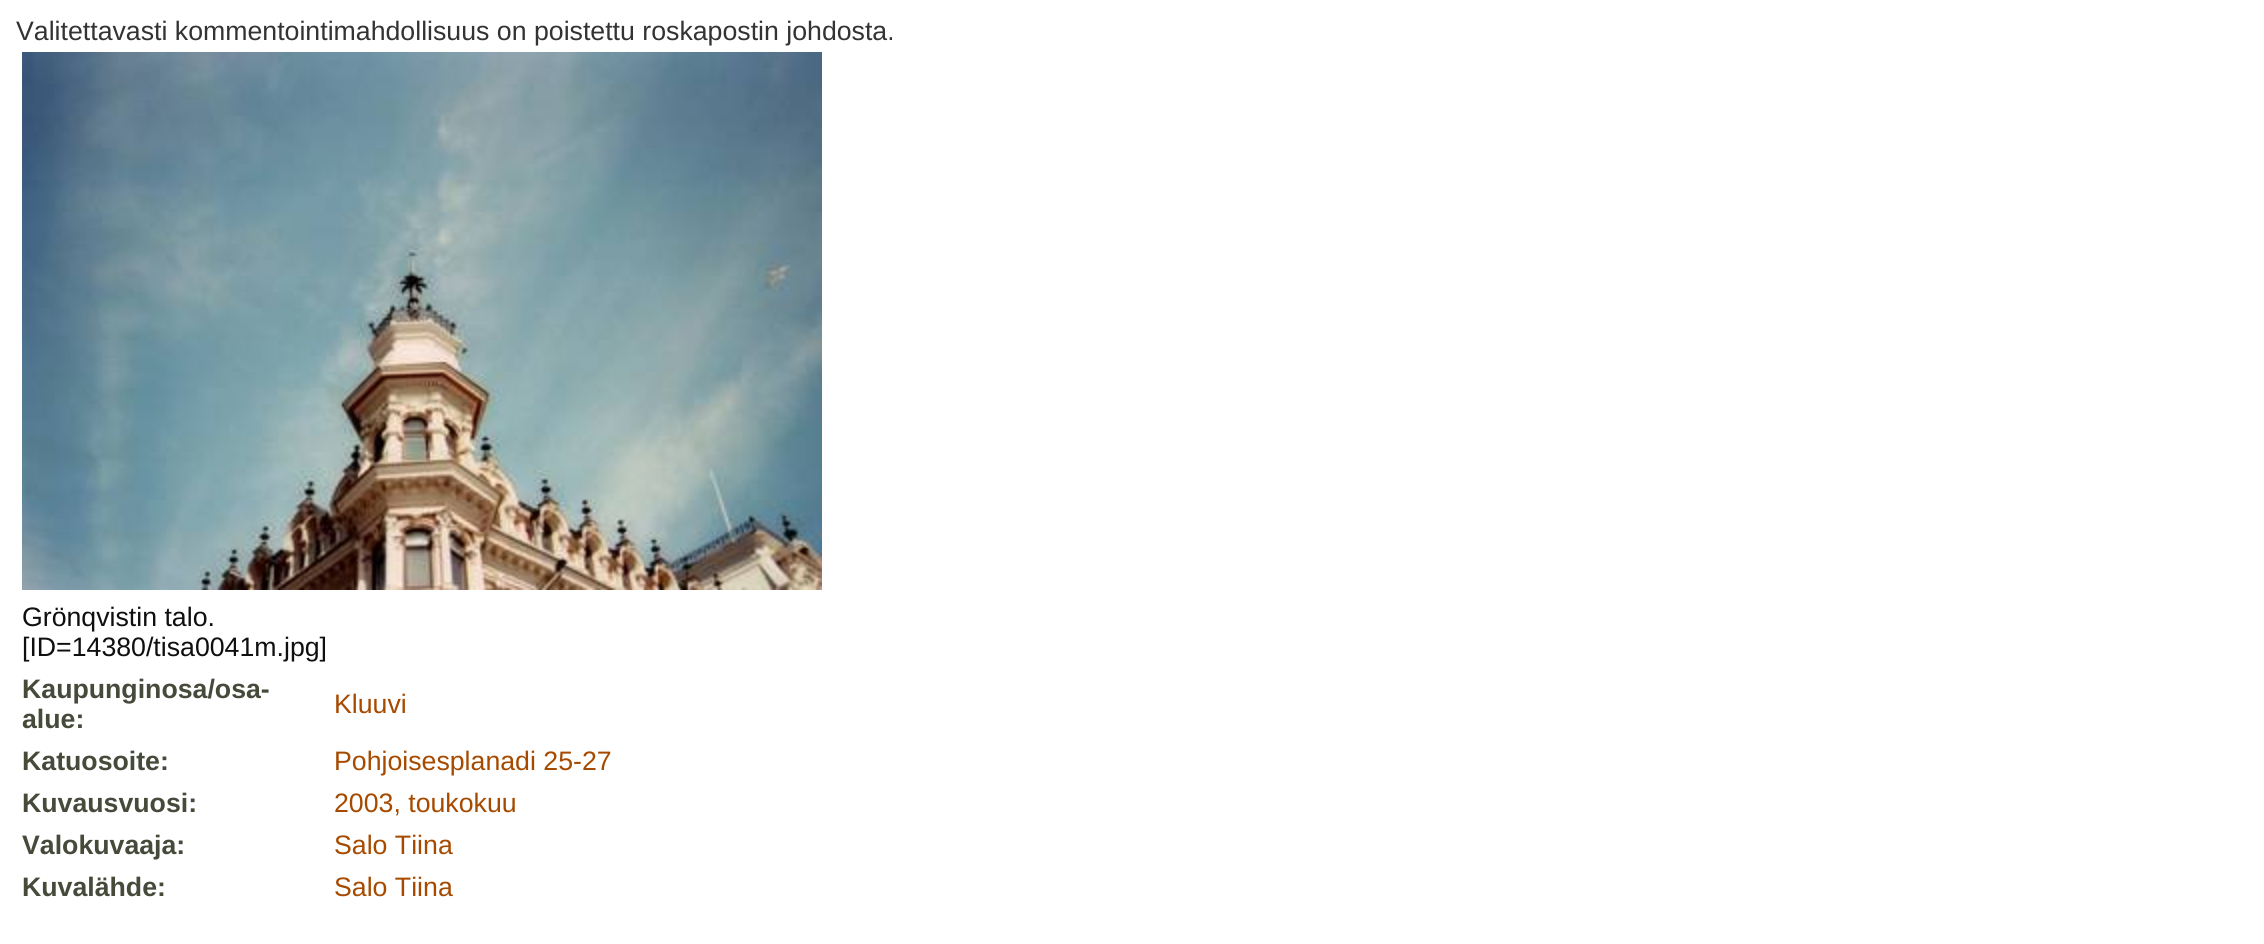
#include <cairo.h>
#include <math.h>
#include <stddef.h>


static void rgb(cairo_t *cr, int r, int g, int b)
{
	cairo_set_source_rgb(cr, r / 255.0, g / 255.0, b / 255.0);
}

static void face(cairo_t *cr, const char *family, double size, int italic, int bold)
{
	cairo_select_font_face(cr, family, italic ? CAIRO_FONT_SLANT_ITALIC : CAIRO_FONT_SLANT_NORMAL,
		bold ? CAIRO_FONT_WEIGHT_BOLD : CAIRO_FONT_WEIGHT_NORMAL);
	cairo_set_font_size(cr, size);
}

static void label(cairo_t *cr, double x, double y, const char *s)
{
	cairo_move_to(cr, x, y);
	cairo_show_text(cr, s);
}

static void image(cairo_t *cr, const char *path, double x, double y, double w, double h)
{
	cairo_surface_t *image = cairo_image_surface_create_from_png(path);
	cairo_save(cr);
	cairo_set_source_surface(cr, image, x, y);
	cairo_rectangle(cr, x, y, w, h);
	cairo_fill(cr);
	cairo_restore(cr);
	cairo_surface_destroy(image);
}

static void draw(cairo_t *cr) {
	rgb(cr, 255, 255, 255);
	cairo_paint(cr);
	face(cr, "Liberation Sans", 26.7, 0, 0);
	rgb(cr, 51, 51, 51);
	label(cr, 16, 40, "Valitettavasti kommentointimahdollisuus on poistettu roskapostin johdosta.");
	image(cr, "image0.png", 22, 52, 800, 538);
	rgb(cr, 15, 15, 15);
	label(cr, 22, 626, "Grönqvistin talo.");
	label(cr, 22, 656, "[ID=14380/tisa0041m.jpg]");
	face(cr, "Liberation Sans", 26.7, 0, 1);
	rgb(cr, 69, 74, 58);
	label(cr, 22, 698, "Kaupunginosa/osa-");
	label(cr, 22, 728, "alue:");
	face(cr, "Liberation Sans", 26.7, 0, 0);
	rgb(cr, 166, 74, 0);
	label(cr, 334, 713, "Kluuvi");
	face(cr, "Liberation Sans", 26.7, 0, 1);
	rgb(cr, 69, 74, 58);
	label(cr, 22, 770, "Katuosoite:");
	face(cr, "Liberation Sans", 26.7, 0, 0);
	rgb(cr, 166, 74, 0);
	label(cr, 334, 770, "Pohjoisesplanadi 25-27");
	face(cr, "Liberation Sans", 26.7, 0, 1);
	rgb(cr, 69, 74, 58);
	label(cr, 22, 812, "Kuvausvuosi:");
	face(cr, "Liberation Sans", 26.7, 0, 0);
	rgb(cr, 166, 74, 0);
	label(cr, 334, 812, "2003, toukokuu");
	face(cr, "Liberation Sans", 26.7, 0, 1);
	rgb(cr, 69, 74, 58);
	label(cr, 22, 854, "Valokuvaaja:");
	face(cr, "Liberation Sans", 26.7, 0, 0);
	rgb(cr, 166, 74, 0);
	label(cr, 334, 854, "Salo Tiina");
	face(cr, "Liberation Sans", 26.7, 0, 1);
	rgb(cr, 69, 74, 58);
	label(cr, 22, 896, "Kuvalähde:");
	face(cr, "Liberation Sans", 26.7, 0, 0);
	rgb(cr, 166, 74, 0);
	label(cr, 334, 896, "Salo Tiina");
}

int main(void) {
	cairo_surface_t *surface = cairo_image_surface_create(CAIRO_FORMAT_RGB24, 2264, 944);
	cairo_t *cr = cairo_create(surface);
	cairo_font_options_t *options = cairo_font_options_create();
	cairo_font_options_set_hint_metrics(options, CAIRO_HINT_METRICS_OFF);
	cairo_font_options_set_hint_style(options, CAIRO_HINT_STYLE_NONE);
	cairo_set_font_options(cr, options);
	cairo_set_miter_limit(cr, 4);
	draw(cr);
	cairo_surface_write_to_png(surface, "render.png");
	cairo_font_options_destroy(options);
	cairo_destroy(cr);
	cairo_surface_destroy(surface);
	return 0;
}
